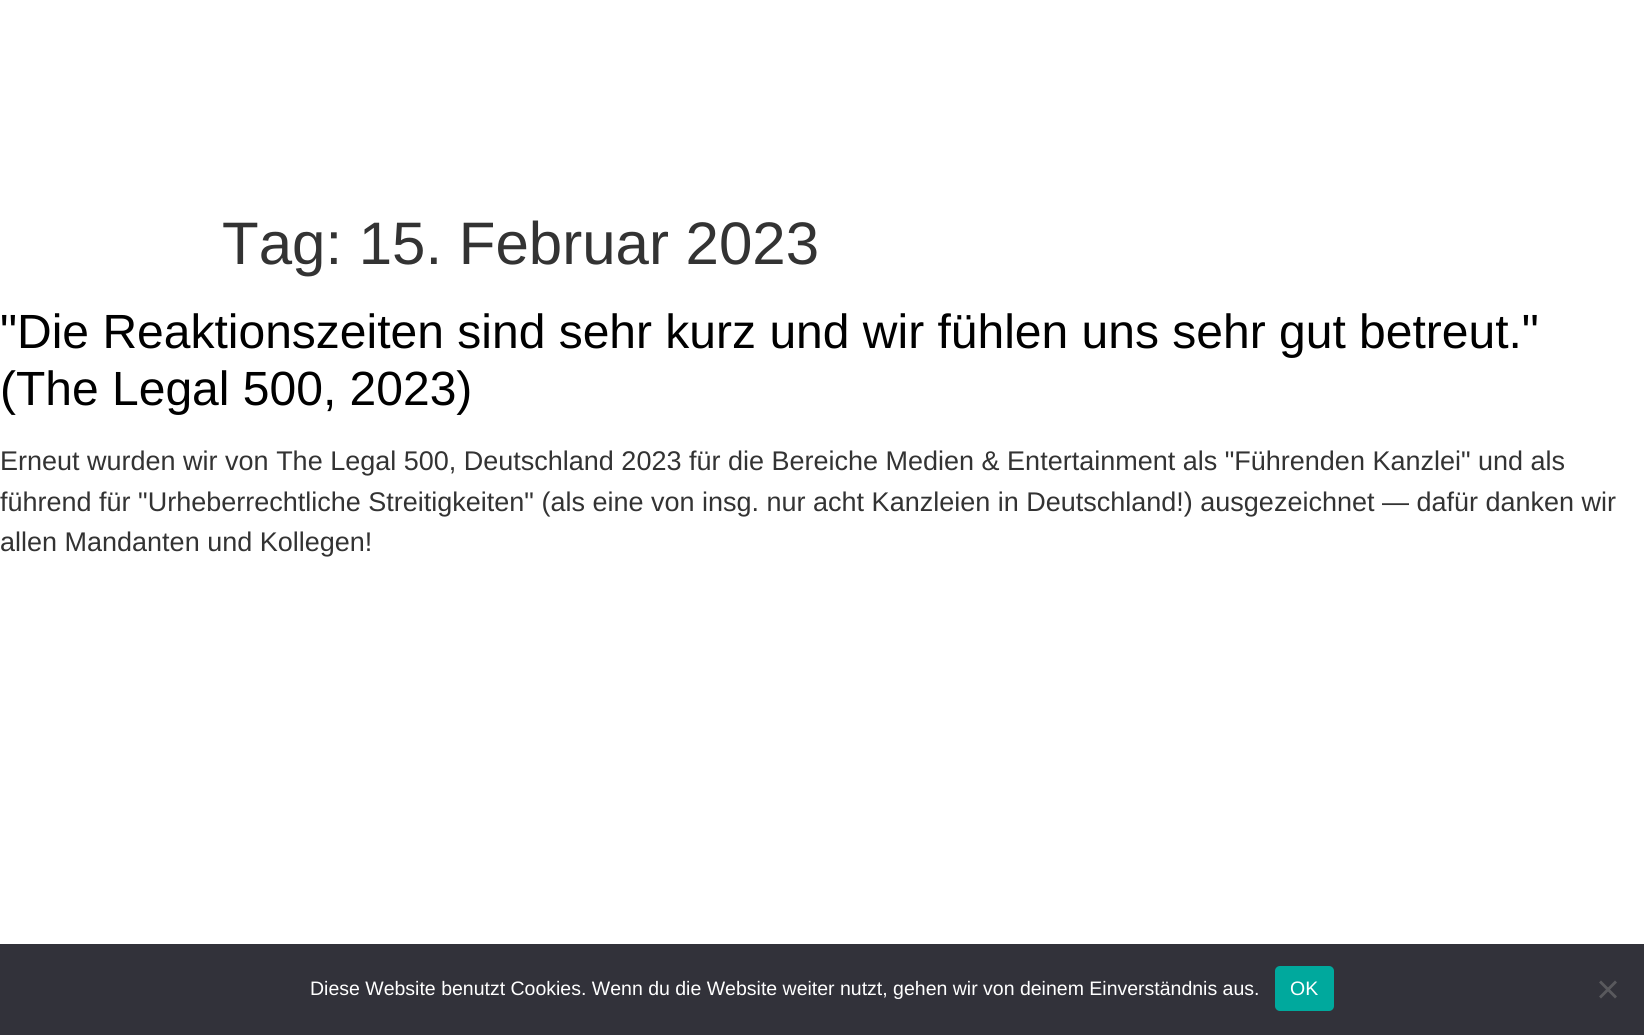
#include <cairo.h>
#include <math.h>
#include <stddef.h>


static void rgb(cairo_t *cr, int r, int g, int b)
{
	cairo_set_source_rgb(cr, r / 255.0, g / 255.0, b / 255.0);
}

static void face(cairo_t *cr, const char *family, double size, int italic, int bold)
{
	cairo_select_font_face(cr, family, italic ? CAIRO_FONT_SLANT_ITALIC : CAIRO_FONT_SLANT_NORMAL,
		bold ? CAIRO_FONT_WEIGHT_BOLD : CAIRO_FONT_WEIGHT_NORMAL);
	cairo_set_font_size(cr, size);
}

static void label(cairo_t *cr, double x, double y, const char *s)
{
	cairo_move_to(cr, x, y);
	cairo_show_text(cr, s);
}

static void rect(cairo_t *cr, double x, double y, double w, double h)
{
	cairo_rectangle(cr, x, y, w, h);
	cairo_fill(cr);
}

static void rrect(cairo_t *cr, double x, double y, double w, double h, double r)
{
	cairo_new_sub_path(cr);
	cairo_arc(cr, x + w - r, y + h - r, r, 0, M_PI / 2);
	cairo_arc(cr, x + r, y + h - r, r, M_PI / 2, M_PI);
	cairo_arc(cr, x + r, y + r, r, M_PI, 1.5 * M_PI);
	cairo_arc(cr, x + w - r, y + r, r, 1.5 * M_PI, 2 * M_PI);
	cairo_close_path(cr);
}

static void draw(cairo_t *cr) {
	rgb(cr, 255, 255, 255);
	cairo_paint(cr);
	face(cr, "Liberation Sans", 60, 0, 0);
	rgb(cr, 51, 51, 51);
	label(cr, 222, 264, "Tag: 15. Februar 2023");
	face(cr, "Liberation Sans", 48, 0, 0);
	rgb(cr, 0, 0, 0);
	label(cr, 0, 348, "\"Die Reaktionszeiten sind sehr kurz und wir fühlen uns sehr gut betreut.\"");
	label(cr, 0, 405, "(The Legal 500, 2023)");
	face(cr, "Liberation Sans", 27, 0, 0);
	rgb(cr, 51, 51, 51);
	label(cr, 0, 470, "Erneut wurden wir von The Legal 500, Deutschland 2023 für die Bereiche Medien & Entertainment als \"Führenden Kanzlei\" und als");
	label(cr, 0, 511, "führend für \"Urheberrechtliche Streitigkeiten\" (als eine von insg. nur acht Kanzleien in Deutschland!) ausgezeichnet — dafür danken wir");
	label(cr, 0, 551, "allen Mandanten und Kollegen!");
	rgb(cr, 50, 50, 58);
	rect(cr, 0, 944, 1644, 91);
	face(cr, "Liberation Sans", 19.5, 0, 0);
	rgb(cr, 255, 255, 255);
	label(cr, 310, 995, "Diese Website benutzt Cookies. Wenn du die Website weiter nutzt, gehen wir von deinem Einverständnis aus.");
	rgb(cr, 0, 169, 157);
	rrect(cr, 1275, 966, 59, 45, 5);
	cairo_fill(cr);
	rgb(cr, 255, 255, 255);
	label(cr, 1290, 995, "OK");
	rgb(cr, 89, 89, 93);
	cairo_new_path(cr);
	cairo_move_to(cr, 1615, 980.5);
	cairo_line_to(cr, 1617, 982.5);
	cairo_line_to(cr, 1601, 998.5);
	cairo_line_to(cr, 1599, 996.5);
	cairo_close_path(cr);
	cairo_fill(cr);
	cairo_new_path(cr);
	cairo_move_to(cr, 1599, 982.5);
	cairo_line_to(cr, 1601, 980.5);
	cairo_line_to(cr, 1617, 996.5);
	cairo_line_to(cr, 1615, 998.5);
	cairo_close_path(cr);
	cairo_fill(cr);
}

int main(void) {
	cairo_surface_t *surface = cairo_image_surface_create(CAIRO_FORMAT_RGB24, 1644, 1035);
	cairo_t *cr = cairo_create(surface);
	cairo_font_options_t *options = cairo_font_options_create();
	cairo_font_options_set_hint_metrics(options, CAIRO_HINT_METRICS_OFF);
	cairo_font_options_set_hint_style(options, CAIRO_HINT_STYLE_NONE);
	cairo_set_font_options(cr, options);
	cairo_set_miter_limit(cr, 4);
	draw(cr);
	cairo_surface_write_to_png(surface, "render.png");
	cairo_font_options_destroy(options);
	cairo_destroy(cr);
	cairo_surface_destroy(surface);
	return 0;
}
